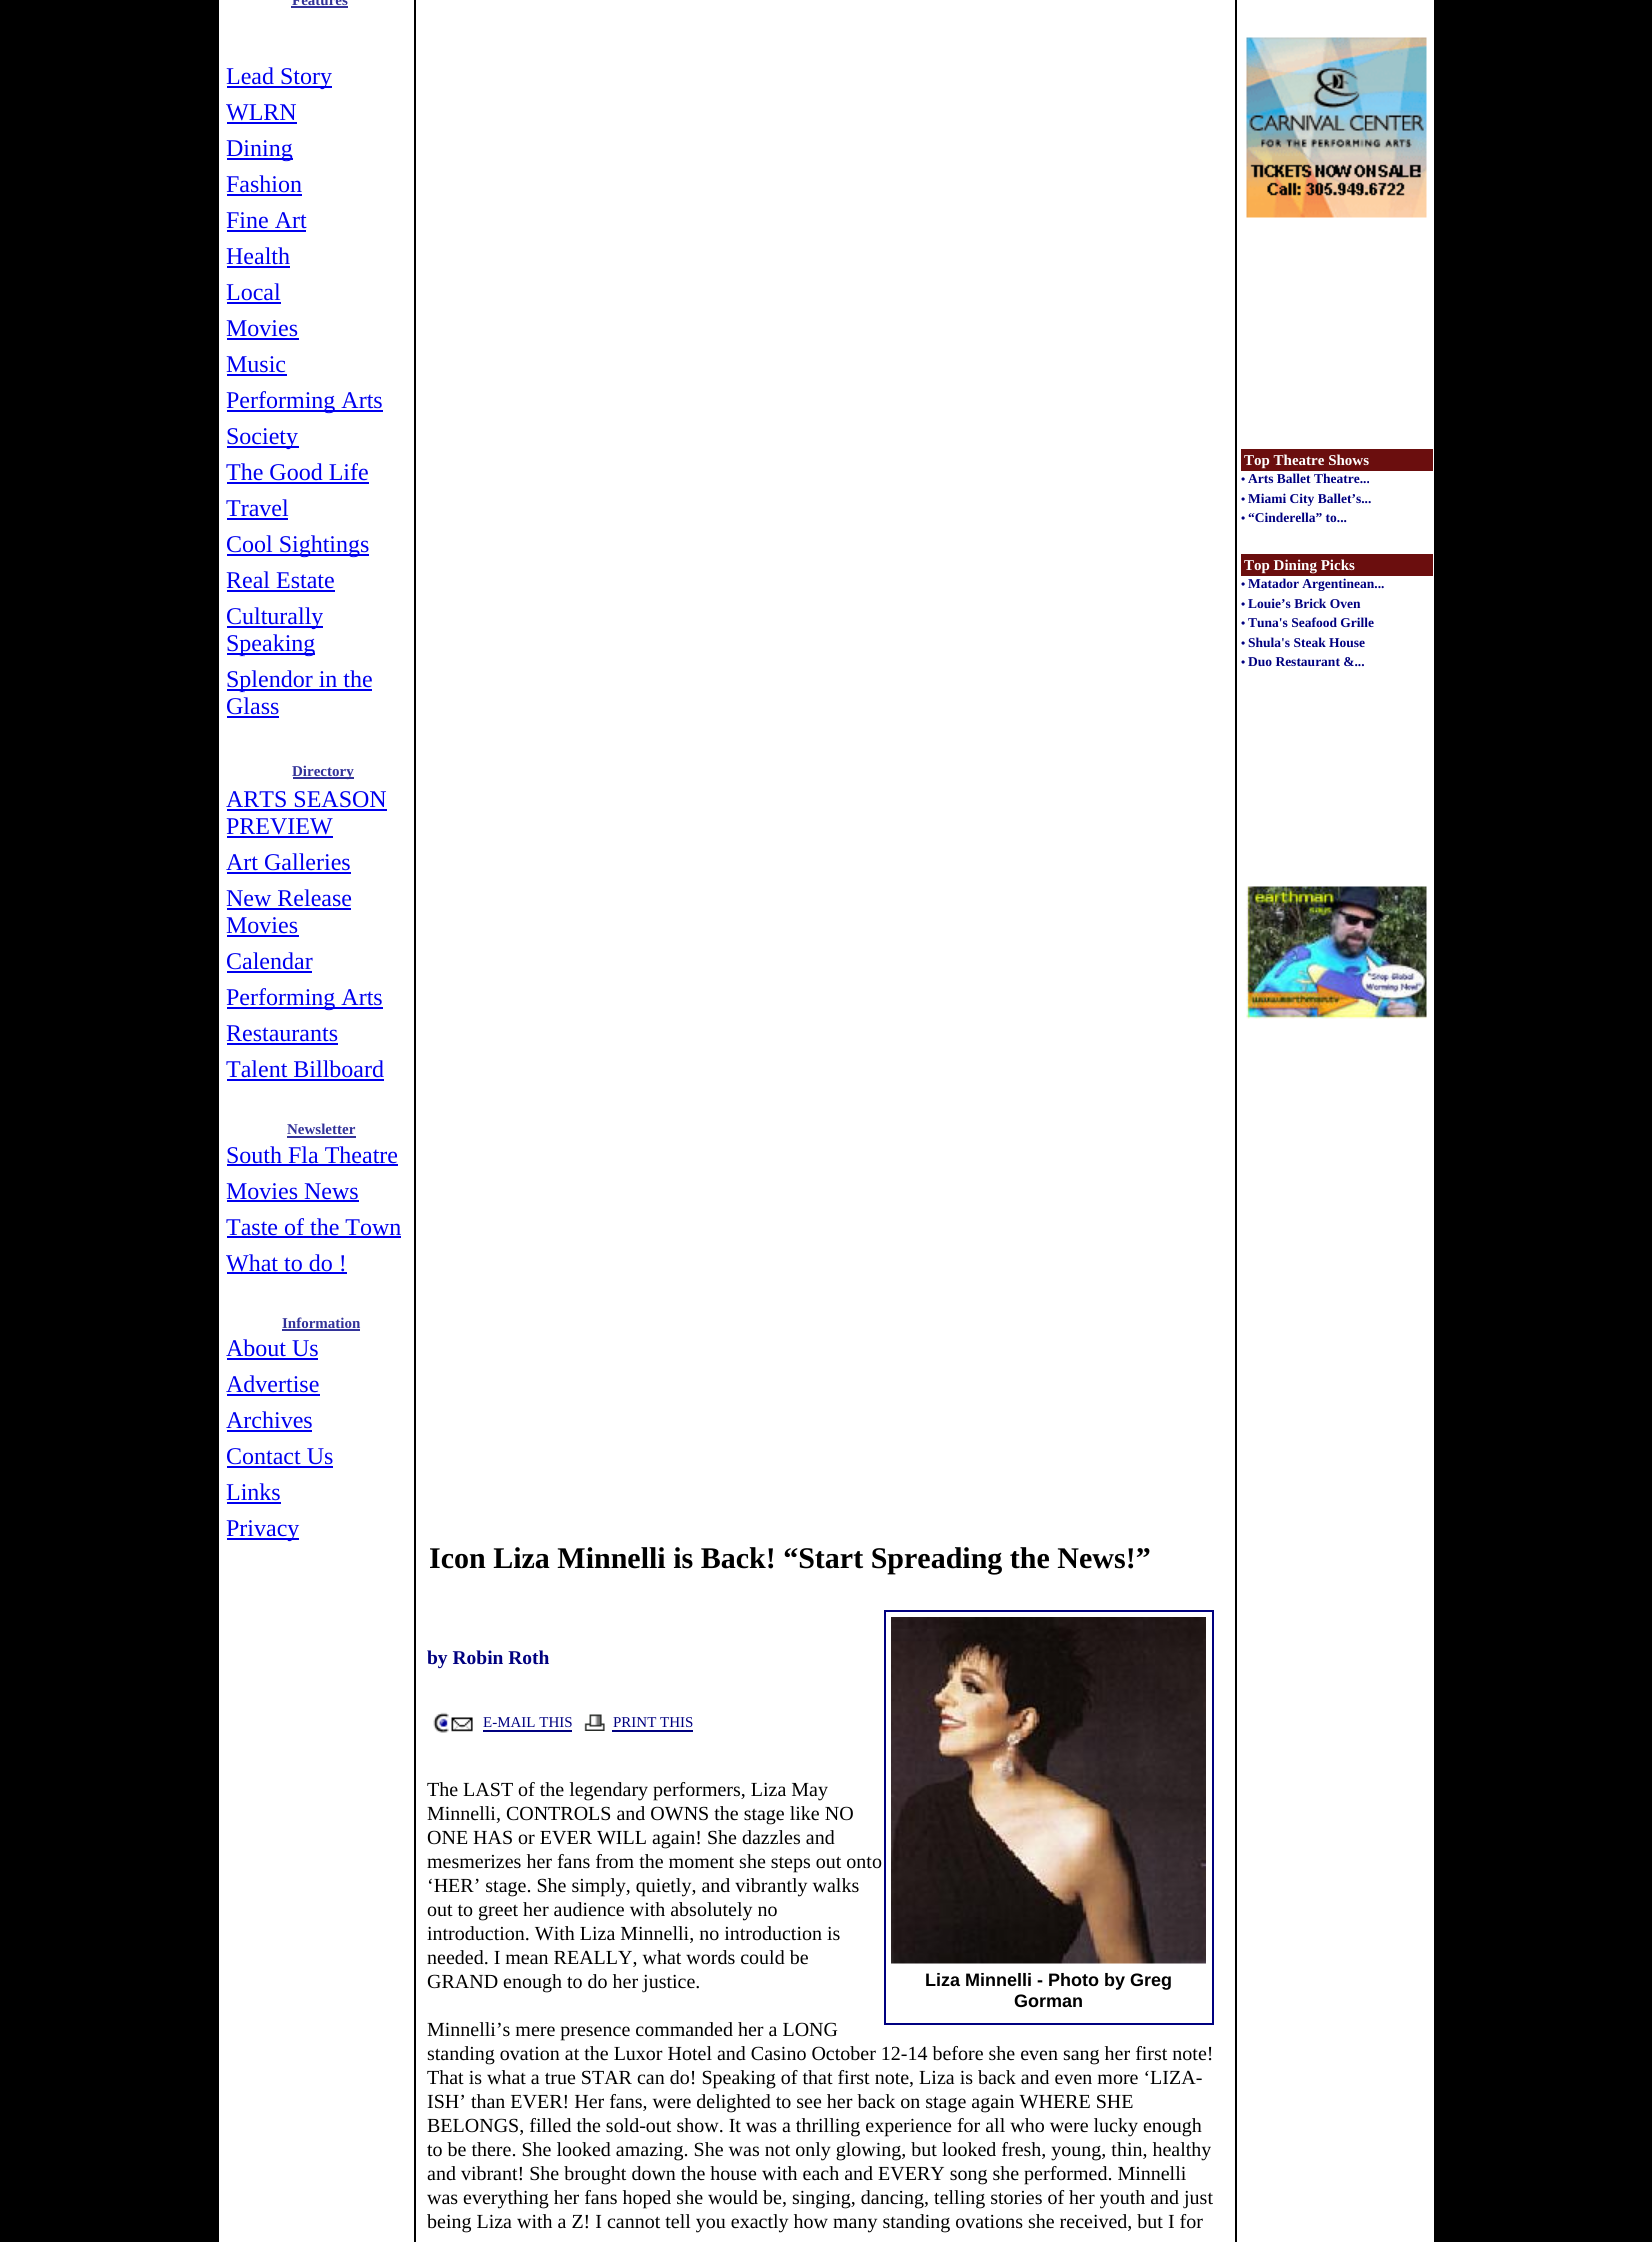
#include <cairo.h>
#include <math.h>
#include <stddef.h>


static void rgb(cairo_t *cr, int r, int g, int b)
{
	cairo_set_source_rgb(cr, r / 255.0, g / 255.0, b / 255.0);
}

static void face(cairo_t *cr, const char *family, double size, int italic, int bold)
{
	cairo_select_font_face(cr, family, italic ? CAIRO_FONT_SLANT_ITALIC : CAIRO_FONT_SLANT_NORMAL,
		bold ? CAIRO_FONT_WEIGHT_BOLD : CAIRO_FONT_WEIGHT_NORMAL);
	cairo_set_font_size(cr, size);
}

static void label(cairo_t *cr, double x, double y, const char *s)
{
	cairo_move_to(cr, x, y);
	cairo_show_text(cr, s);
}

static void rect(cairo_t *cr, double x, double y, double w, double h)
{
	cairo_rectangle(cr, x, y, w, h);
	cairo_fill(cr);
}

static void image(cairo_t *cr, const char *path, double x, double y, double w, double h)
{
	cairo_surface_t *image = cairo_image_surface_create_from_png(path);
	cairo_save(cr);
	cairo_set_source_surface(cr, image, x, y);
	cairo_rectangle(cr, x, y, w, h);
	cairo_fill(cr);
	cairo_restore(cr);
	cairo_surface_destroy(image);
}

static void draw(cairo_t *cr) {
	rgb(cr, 0, 0, 0);
	cairo_paint(cr);
	rgb(cr, 255, 255, 255);
	rect(cr, 219, 0, 1215, 2242);
	rgb(cr, 0, 0, 0);
	rect(cr, 414, 0, 2, 2242);
	face(cr, "Liberation Serif", 15, 0, 1);
	rgb(cr, 51, 51, 153);
	label(cr, 292, 5, "Features");
	rect(cr, 291, 6, 57, 2);
	rgb(cr, 0, 0, 238);
	rect(cr, 227, 86, 105, 2);
	face(cr, "Liberation Serif", 24, 0, 0);
	label(cr, 226, 84, "Lead Story");
	label(cr, 226, 120, "WLRN");
	rect(cr, 227, 122, 70, 2);
	rect(cr, 227, 158, 66, 2);
	label(cr, 226, 156, "Dining");
	label(cr, 226, 192, "Fashion");
	rect(cr, 227, 194, 75, 2);
	label(cr, 226, 228, "Fine Art");
	rect(cr, 227, 230, 79, 2);
	label(cr, 226, 264, "Health");
	rect(cr, 227, 266, 63, 2);
	label(cr, 226, 300, "Local");
	rect(cr, 227, 302, 54, 2);
	label(cr, 226, 336, "Movies");
	rect(cr, 227, 338, 72, 2);
	label(cr, 226, 372, "Music");
	rect(cr, 227, 374, 60, 2);
	rect(cr, 227, 410, 156, 2);
	label(cr, 226, 408, "Performing Arts");
	rect(cr, 227, 446, 72, 2);
	label(cr, 226, 444, "Society");
	label(cr, 226, 480, "The Good Life");
	rect(cr, 227, 482, 142, 2);
	label(cr, 226, 516, "Travel");
	rect(cr, 227, 518, 61, 2);
	rect(cr, 227, 554, 142, 2);
	label(cr, 226, 552, "Cool Sightings");
	label(cr, 226, 588, "Real Estate");
	rect(cr, 227, 590, 108, 2);
	rect(cr, 227, 626, 96, 2);
	label(cr, 226, 624, "Culturally");
	rect(cr, 227, 653, 88, 2);
	label(cr, 226, 651, "Speaking");
	rect(cr, 227, 689, 145, 2);
	label(cr, 226, 687, "Splendor in the");
	label(cr, 226, 714, "Glass");
	rect(cr, 227, 716, 52, 2);
	rgb(cr, 51, 51, 153);
	rect(cr, 293, 777, 61, 2);
	face(cr, "Liberation Serif", 15, 0, 1);
	label(cr, 292, 776, "Directory");
	face(cr, "Liberation Serif", 24, 0, 0);
	rgb(cr, 0, 0, 238);
	label(cr, 226, 807, "ARTS SEASON");
	rect(cr, 227, 809, 160, 2);
	label(cr, 226, 834, "PREVIEW");
	rect(cr, 227, 836, 106, 2);
	label(cr, 226, 870, "Art Galleries");
	rect(cr, 227, 872, 124, 2);
	label(cr, 226, 906, "New Release");
	rect(cr, 227, 908, 124, 2);
	label(cr, 226, 933, "Movies");
	rect(cr, 227, 935, 72, 2);
	label(cr, 226, 969, "Calendar");
	rect(cr, 227, 971, 85, 2);
	rect(cr, 227, 1007, 156, 2);
	label(cr, 226, 1005, "Performing Arts");
	label(cr, 226, 1041, "Restaurants");
	rect(cr, 227, 1043, 111, 2);
	label(cr, 226, 1077, "Talent Billboard");
	rect(cr, 227, 1079, 157, 2);
	face(cr, "Liberation Serif", 15, 0, 1);
	rgb(cr, 51, 51, 153);
	label(cr, 287, 1134, "Newsletter");
	rect(cr, 287, 1136, 69, 2);
	face(cr, "Liberation Serif", 24, 0, 0);
	rgb(cr, 0, 0, 238);
	label(cr, 226, 1163, "South Fla Theatre");
	rect(cr, 227, 1164, 171, 2);
	label(cr, 226, 1199, "Movies News");
	rect(cr, 227, 1200, 132, 2);
	label(cr, 226, 1235, "Taste of the Town");
	rect(cr, 227, 1236, 174, 2);
	label(cr, 226, 1271, "What to do !");
	rect(cr, 227, 1272, 120, 2);
	face(cr, "Liberation Serif", 15, 0, 1);
	rgb(cr, 51, 51, 153);
	label(cr, 282, 1328, "Information");
	rect(cr, 282, 1329, 78, 2);
	face(cr, "Liberation Serif", 24, 0, 0);
	rgb(cr, 0, 0, 238);
	label(cr, 226, 1356, "About Us");
	rect(cr, 227, 1358, 91, 2);
	label(cr, 226, 1392, "Advertise");
	rect(cr, 227, 1394, 93, 2);
	label(cr, 226, 1428, "Archives");
	rect(cr, 227, 1430, 85, 2);
	label(cr, 226, 1464, "Contact Us");
	rect(cr, 227, 1466, 106, 2);
	label(cr, 226, 1500, "Links");
	rect(cr, 227, 1502, 54, 2);
	rect(cr, 227, 1538, 72, 2);
	label(cr, 226, 1536, "Privacy");
	rgb(cr, 0, 0, 0);
	rect(cr, 1235, 0, 2, 2242);
	image(cr, "image0.png", 1246, 37, 181, 181);
	rgb(cr, 107, 14, 14);
	rect(cr, 1241, 449, 192, 22);
	face(cr, "Liberation Serif", 15, 0, 1);
	rgb(cr, 255, 255, 255);
	label(cr, 1244, 465, "Top Theatre Shows");
	face(cr, "Liberation Sans", 12, 0, 0);
	rgb(cr, 0, 0, 128);
	label(cr, 1241, 483, "•");
	face(cr, "Liberation Serif", 13.5, 0, 1);
	label(cr, 1248, 483, "Arts Ballet Theatre...");
	face(cr, "Liberation Sans", 12, 0, 0);
	label(cr, 1241, 503, "•");
	face(cr, "Liberation Serif", 13.5, 0, 1);
	label(cr, 1248, 503, "Miami City Ballet’s...");
	face(cr, "Liberation Sans", 12, 0, 0);
	label(cr, 1241, 522, "•");
	face(cr, "Liberation Serif", 13.5, 0, 1);
	label(cr, 1248, 522, "“Cinderella” to...");
	rgb(cr, 107, 14, 14);
	rect(cr, 1241, 554, 192, 22);
	face(cr, "Liberation Serif", 15, 0, 1);
	rgb(cr, 255, 255, 255);
	label(cr, 1244, 570, "Top Dining Picks");
	face(cr, "Liberation Sans", 12, 0, 0);
	rgb(cr, 0, 0, 128);
	label(cr, 1241, 588, "•");
	face(cr, "Liberation Serif", 13.5, 0, 1);
	label(cr, 1248, 588, "Matador Argentinean...");
	face(cr, "Liberation Sans", 12, 0, 0);
	label(cr, 1241, 608, "•");
	face(cr, "Liberation Serif", 13.5, 0, 1);
	label(cr, 1248, 608, "Louie’s Brick Oven");
	face(cr, "Liberation Sans", 12, 0, 0);
	label(cr, 1241, 627, "•");
	face(cr, "Liberation Serif", 13.5, 0, 1);
	label(cr, 1248, 627, "Tuna's Seafood Grille");
	face(cr, "Liberation Sans", 12, 0, 0);
	label(cr, 1241, 647, "•");
	face(cr, "Liberation Serif", 13.5, 0, 1);
	label(cr, 1248, 647, "Shula's Steak House");
	face(cr, "Liberation Sans", 12, 0, 0);
	label(cr, 1241, 666, "•");
	face(cr, "Liberation Serif", 13.5, 0, 1);
	label(cr, 1248, 666, "Duo Restaurant &...");
	image(cr, "image1.png", 1246, 886, 181, 133);
	face(cr, "Liberation Serif", 30, 0, 1);
	rgb(cr, 0, 0, 0);
	label(cr, 429, 1568, "Icon Liza Minnelli is Back! “Start Spreading the News!”");
	face(cr, "Liberation Serif", 19.5, 0, 1);
	rgb(cr, 0, 0, 128);
	label(cr, 427, 1664, "by Robin Roth");
	image(cr, "image2.png", 433, 1712, 40, 21);
	face(cr, "Liberation Serif", 15, 0, 0);
	label(cr, 483, 1727, "E-MAIL THIS");
	rect(cr, 483, 1730, 89, 2);
	image(cr, "image3.png", 584, 1714, 21, 17);
	label(cr, 613, 1727, "PRINT THIS");
	rect(cr, 612, 1730, 81, 2);
	face(cr, "Liberation Serif", 20, 0, 0);
	rgb(cr, 0, 0, 0);
	label(cr, 427, 1796, "The LAST of the legendary performers, Liza May");
	label(cr, 427, 1820, "Minnelli, CONTROLS and OWNS the stage like NO");
	label(cr, 427, 1844, "ONE HAS or EVER WILL again! She dazzles and");
	label(cr, 427, 1868, "mesmerizes her fans from the moment she steps out onto");
	label(cr, 427, 1892, "‘HER’ stage. She simply, quietly, and vibrantly walks");
	label(cr, 427, 1916, "out to greet her audience with absolutely no");
	label(cr, 427, 1940, "introduction. With Liza Minnelli, no introduction is");
	label(cr, 427, 1964, "needed. I mean REALLY, what words could be");
	label(cr, 427, 1988, "GRAND enough to do her justice.");
	label(cr, 427, 2036, "Minnelli’s mere presence commanded her a LONG");
	label(cr, 427, 2060, "standing ovation at the Luxor Hotel and Casino October 12-14 before she even sang her first note!");
	label(cr, 427, 2084, "That is what a true STAR can do! Speaking of that first note, Liza is back and even more ‘LIZA-");
	label(cr, 427, 2108, "ISH’ than EVER! Her fans, were delighted to see her back on stage again WHERE SHE");
	label(cr, 427, 2132, "BELONGS, filled the sold-out show. It was a thrilling experience for all who were lucky enough");
	label(cr, 427, 2156, "to be there. She looked amazing. She was not only glowing, but looked fresh, young, thin, healthy");
	label(cr, 427, 2180, "and vibrant! She brought down the house with each and EVERY song she performed. Minnelli");
	label(cr, 427, 2204, "was everything her fans hoped she would be, singing, dancing, telling stories of her youth and just");
	label(cr, 427, 2228, "being Liza with a Z! I cannot tell you exactly how many standing ovations she received, but I for");
	cairo_rectangle(cr, 885, 1611, 328, 413);
	rgb(cr, 0, 0, 128);
	cairo_stroke(cr);
	image(cr, "image4.png", 891, 1617, 315, 347);
	face(cr, "Liberation Sans", 18, 0, 1);
	rgb(cr, 0, 0, 0);
	label(cr, 925, 1986, "Liza Minnelli - Photo by Greg");
	label(cr, 1014, 2007, "Gorman");
}

int main(void) {
	cairo_surface_t *surface = cairo_image_surface_create(CAIRO_FORMAT_RGB24, 1652, 2242);
	cairo_t *cr = cairo_create(surface);
	cairo_font_options_t *options = cairo_font_options_create();
	cairo_font_options_set_hint_metrics(options, CAIRO_HINT_METRICS_OFF);
	cairo_font_options_set_hint_style(options, CAIRO_HINT_STYLE_NONE);
	cairo_set_font_options(cr, options);
	cairo_set_miter_limit(cr, 4);
	draw(cr);
	cairo_surface_write_to_png(surface, "render.png");
	cairo_font_options_destroy(options);
	cairo_destroy(cr);
	cairo_surface_destroy(surface);
	return 0;
}
